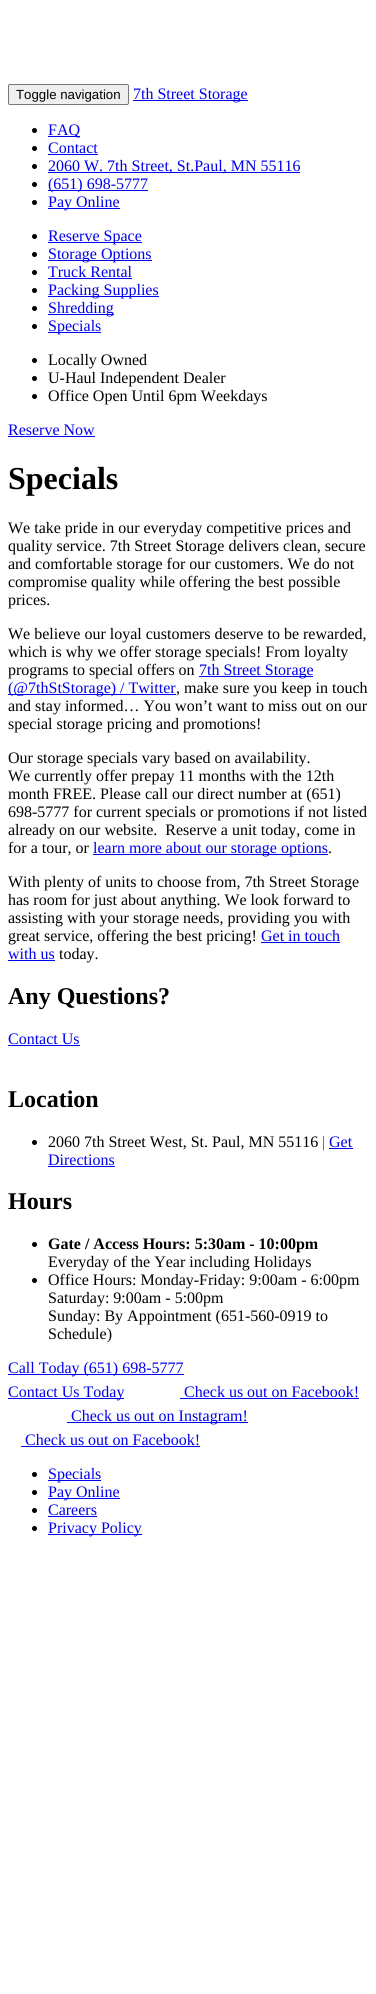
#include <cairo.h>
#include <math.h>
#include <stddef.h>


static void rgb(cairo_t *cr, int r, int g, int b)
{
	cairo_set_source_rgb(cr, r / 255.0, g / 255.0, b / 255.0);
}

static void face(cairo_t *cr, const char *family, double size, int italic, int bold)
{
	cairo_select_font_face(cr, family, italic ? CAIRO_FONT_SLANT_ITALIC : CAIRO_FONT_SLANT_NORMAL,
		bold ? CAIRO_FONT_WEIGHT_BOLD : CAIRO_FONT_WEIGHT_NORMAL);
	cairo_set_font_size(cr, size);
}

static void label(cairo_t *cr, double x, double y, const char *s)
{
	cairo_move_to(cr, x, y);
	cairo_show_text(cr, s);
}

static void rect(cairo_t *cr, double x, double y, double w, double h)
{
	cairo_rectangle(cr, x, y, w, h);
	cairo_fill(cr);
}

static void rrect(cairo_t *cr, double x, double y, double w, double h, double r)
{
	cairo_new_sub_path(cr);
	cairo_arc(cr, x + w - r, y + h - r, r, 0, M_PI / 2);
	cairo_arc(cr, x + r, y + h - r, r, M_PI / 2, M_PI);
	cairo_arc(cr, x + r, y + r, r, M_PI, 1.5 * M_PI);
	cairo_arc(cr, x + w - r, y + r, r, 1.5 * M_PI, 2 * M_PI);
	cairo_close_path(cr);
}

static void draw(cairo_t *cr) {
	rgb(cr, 255, 255, 255);
	cairo_paint(cr);
	rgb(cr, 239, 239, 239);
	rrect(cr, 8.5, 84.5, 120, 20, 1.5);
	cairo_fill_preserve(cr);
	rgb(cr, 118, 118, 118);
	cairo_set_line_width(cr, 1);
	cairo_stroke(cr);
	face(cr, "Liberation Sans", 13.25, 0, 0);
	rgb(cr, 0, 0, 0);
	label(cr, 16, 99, "Toggle navigation");
	rgb(cr, 0, 0, 238);
	rect(cr, 133, 100, 115, 1);
	face(cr, "Liberation Serif", 16, 0, 0);
	label(cr, 133, 99, "7th Street Storage");
	rgb(cr, 0, 0, 0);
	cairo_new_path(cr);
	cairo_arc(cr, 34.5, 130.5, 2.5, 0, 2 * M_PI);
	cairo_fill(cr);
	rgb(cr, 0, 0, 238);
	rect(cr, 48, 136, 32, 1);
	label(cr, 48, 135, "FAQ");
	rgb(cr, 0, 0, 0);
	cairo_new_path(cr);
	cairo_arc(cr, 34.5, 148.5, 2.5, 0, 2 * M_PI);
	cairo_fill(cr);
	rgb(cr, 0, 0, 238);
	label(cr, 48, 153, "Contact");
	rect(cr, 48, 154, 50, 1);
	rgb(cr, 0, 0, 0);
	cairo_new_path(cr);
	cairo_arc(cr, 34.5, 166.5, 2.5, 0, 2 * M_PI);
	cairo_fill(cr);
	rgb(cr, 0, 0, 238);
	rect(cr, 48, 172, 252, 1);
	label(cr, 48, 171, "2060 W. 7th Street, St.Paul, MN 55116");
	rgb(cr, 0, 0, 0);
	cairo_new_path(cr);
	cairo_arc(cr, 34.5, 184.5, 2.5, 0, 2 * M_PI);
	cairo_fill(cr);
	rgb(cr, 0, 0, 238);
	rect(cr, 48, 190, 100, 1);
	label(cr, 48, 189, "(651) 698-5777");
	rgb(cr, 0, 0, 0);
	cairo_new_path(cr);
	cairo_arc(cr, 34.5, 202.5, 2.5, 0, 2 * M_PI);
	cairo_fill(cr);
	rgb(cr, 0, 0, 238);
	rect(cr, 48, 208, 72, 1);
	label(cr, 48, 207, "Pay Online");
	rgb(cr, 0, 0, 0);
	cairo_new_path(cr);
	cairo_arc(cr, 34.5, 236.5, 2.5, 0, 2 * M_PI);
	cairo_fill(cr);
	rgb(cr, 0, 0, 238);
	rect(cr, 48, 242, 94, 1);
	label(cr, 48, 241, "Reserve Space");
	rgb(cr, 0, 0, 0);
	cairo_new_path(cr);
	cairo_arc(cr, 34.5, 254.5, 2.5, 0, 2 * M_PI);
	cairo_fill(cr);
	rgb(cr, 0, 0, 238);
	rect(cr, 48, 260, 104, 1);
	label(cr, 48, 259, "Storage Options");
	rgb(cr, 0, 0, 0);
	cairo_new_path(cr);
	cairo_arc(cr, 34.5, 272.5, 2.5, 0, 2 * M_PI);
	cairo_fill(cr);
	rgb(cr, 0, 0, 238);
	label(cr, 48, 277, "Truck Rental");
	rect(cr, 48, 278, 84, 1);
	rgb(cr, 0, 0, 0);
	cairo_new_path(cr);
	cairo_arc(cr, 34.5, 290.5, 2.5, 0, 2 * M_PI);
	cairo_fill(cr);
	rgb(cr, 0, 0, 238);
	rect(cr, 48, 296, 111, 1);
	label(cr, 48, 295, "Packing Supplies");
	rgb(cr, 0, 0, 0);
	cairo_new_path(cr);
	cairo_arc(cr, 34.5, 308.5, 2.5, 0, 2 * M_PI);
	cairo_fill(cr);
	rgb(cr, 0, 0, 238);
	rect(cr, 48, 314, 66, 1);
	label(cr, 48, 313, "Shredding");
	rgb(cr, 0, 0, 0);
	cairo_new_path(cr);
	cairo_arc(cr, 34.5, 326.5, 2.5, 0, 2 * M_PI);
	cairo_fill(cr);
	rgb(cr, 0, 0, 238);
	rect(cr, 48, 332, 53, 1);
	label(cr, 48, 331, "Specials");
	rgb(cr, 0, 0, 0);
	cairo_new_path(cr);
	cairo_arc(cr, 34.5, 360.5, 2.5, 0, 2 * M_PI);
	cairo_fill(cr);
	label(cr, 48, 365, "Locally Owned");
	cairo_new_path(cr);
	cairo_arc(cr, 34.5, 378.5, 2.5, 0, 2 * M_PI);
	cairo_fill(cr);
	label(cr, 48, 383, "U-Haul Independent Dealer");
	cairo_new_path(cr);
	cairo_arc(cr, 34.5, 396.5, 2.5, 0, 2 * M_PI);
	cairo_fill(cr);
	label(cr, 48, 401, "Office Open Until 6pm Weekdays");
	rgb(cr, 0, 0, 238);
	label(cr, 8, 435, "Reserve Now");
	rect(cr, 8, 436, 87, 1);
	face(cr, "Liberation Serif", 32, 0, 1);
	rgb(cr, 0, 0, 0);
	label(cr, 8, 489, "Specials");
	face(cr, "Liberation Serif", 16, 0, 0);
	label(cr, 8, 533, "We take pride in our everyday competitive prices and");
	label(cr, 8, 551, "quality service. 7th Street Storage delivers clean, secure");
	label(cr, 8, 569, "and comfortable storage for our customers. We do not");
	label(cr, 8, 587, "compromise quality while offering the best possible");
	label(cr, 8, 605, "prices.");
	label(cr, 8, 639, "We believe our loyal customers deserve to be rewarded,");
	label(cr, 8, 657, "which is why we offer storage specials! From loyalty");
	label(cr, 8, 675, "programs to special offers on");
	rgb(cr, 0, 0, 238);
	rect(cr, 199, 676, 114, 1);
	label(cr, 199, 675, "7th Street Storage");
	rect(cr, 8, 694, 168, 1);
	label(cr, 8, 693, "(@7thStStorage) / Twitter");
	rgb(cr, 0, 0, 0);
	label(cr, 176, 693, ", make sure you keep in touch");
	label(cr, 8, 711, "and stay informed… You won’t want to miss out on our");
	label(cr, 8, 729, "special storage pricing and promotions!");
	label(cr, 8, 763, "Our storage specials vary based on availability.");
	label(cr, 8, 781, "We currently offer prepay 11 months with the 12th");
	label(cr, 8, 799, "month FREE. Please call our direct number at (651)");
	label(cr, 8, 817, "698-5777 for current specials or promotions if not listed");
	label(cr, 8, 835, "already on our website.  Reserve a unit today, come in");
	label(cr, 8, 853, "for a tour, or");
	rgb(cr, 0, 0, 238);
	rect(cr, 93, 854, 235, 1);
	label(cr, 93, 853, "learn more about our storage options");
	rgb(cr, 0, 0, 0);
	label(cr, 328, 853, ".");
	label(cr, 8, 887, "With plenty of units to choose from, 7th Street Storage");
	label(cr, 8, 905, "has room for just about anything. We look forward to");
	label(cr, 8, 923, "assisting with your storage needs, providing you with");
	label(cr, 8, 941, "great service, offering the best pricing!");
	rgb(cr, 0, 0, 238);
	label(cr, 261, 941, "Get in touch");
	rect(cr, 261, 942, 79, 1);
	label(cr, 8, 959, "with us");
	rect(cr, 8, 960, 47, 1);
	rgb(cr, 0, 0, 0);
	label(cr, 59, 959, "today.");
	face(cr, "Liberation Serif", 24, 0, 1);
	label(cr, 8, 1004, "Any Questions?");
	face(cr, "Liberation Serif", 16, 0, 0);
	rgb(cr, 0, 0, 238);
	label(cr, 8, 1044, "Contact Us");
	rect(cr, 8, 1045, 72, 1);
	face(cr, "Liberation Serif", 24, 0, 1);
	rgb(cr, 0, 0, 0);
	label(cr, 8, 1107, "Location");
	cairo_new_path(cr);
	cairo_arc(cr, 34.5, 1142.5, 2.5, 0, 2 * M_PI);
	cairo_fill(cr);
	face(cr, "Liberation Serif", 16, 0, 0);
	label(cr, 48, 1147, "2060 7th Street West, St. Paul, MN 55116 |");
	rgb(cr, 0, 0, 238);
	label(cr, 329, 1147, "Get");
	rect(cr, 329, 1148, 24, 1);
	label(cr, 48, 1165, "Directions");
	rect(cr, 48, 1166, 67, 1);
	face(cr, "Liberation Serif", 24, 0, 1);
	rgb(cr, 0, 0, 0);
	label(cr, 8, 1209, "Hours");
	cairo_new_path(cr);
	cairo_arc(cr, 34.5, 1244.5, 2.5, 0, 2 * M_PI);
	cairo_fill(cr);
	face(cr, "Liberation Serif", 16, 0, 1);
	label(cr, 48, 1249, "Gate / Access Hours: 5:30am - 10:00pm");
	face(cr, "Liberation Serif", 16, 0, 0);
	label(cr, 48, 1267, "Everyday of the Year including Holidays");
	cairo_new_path(cr);
	cairo_arc(cr, 34.5, 1280.5, 2.5, 0, 2 * M_PI);
	cairo_fill(cr);
	label(cr, 48, 1285, "Office Hours: Monday-Friday: 9:00am - 6:00pm");
	label(cr, 48, 1303, "Saturday: 9:00am - 5:00pm");
	label(cr, 48, 1321, "Sunday: By Appointment (651-560-0919 to");
	label(cr, 48, 1339, "Schedule)");
	rgb(cr, 0, 0, 238);
	rect(cr, 8, 1374, 176, 1);
	label(cr, 8, 1373, "Call Today (651) 698-5777");
	rect(cr, 8, 1398, 116, 1);
	label(cr, 8, 1397, "Contact Us Today");
	label(cr, 184, 1397, "Check us out on Facebook!");
	rect(cr, 180, 1398, 179, 1);
	rect(cr, 67, 1422, 181, 1);
	label(cr, 71, 1421, "Check us out on Instagram!");
	label(cr, 25, 1445, "Check us out on Facebook!");
	rect(cr, 21, 1446, 179, 1);
	rgb(cr, 0, 0, 0);
	cairo_new_path(cr);
	cairo_arc(cr, 34.5, 1474.5, 2.5, 0, 2 * M_PI);
	cairo_fill(cr);
	rgb(cr, 0, 0, 238);
	rect(cr, 48, 1480, 53, 1);
	label(cr, 48, 1479, "Specials");
	rgb(cr, 0, 0, 0);
	cairo_new_path(cr);
	cairo_arc(cr, 34.5, 1492.5, 2.5, 0, 2 * M_PI);
	cairo_fill(cr);
	rgb(cr, 0, 0, 238);
	rect(cr, 48, 1498, 72, 1);
	label(cr, 48, 1497, "Pay Online");
	rgb(cr, 0, 0, 0);
	cairo_new_path(cr);
	cairo_arc(cr, 34.5, 1510.5, 2.5, 0, 2 * M_PI);
	cairo_fill(cr);
	rgb(cr, 0, 0, 238);
	label(cr, 48, 1515, "Careers");
	rect(cr, 48, 1516, 49, 1);
	rgb(cr, 0, 0, 0);
	cairo_new_path(cr);
	cairo_arc(cr, 34.5, 1528.5, 2.5, 0, 2 * M_PI);
	cairo_fill(cr);
	rgb(cr, 0, 0, 238);
	rect(cr, 48, 1534, 94, 1);
	label(cr, 48, 1533, "Privacy Policy");
}

int main(void) {
	cairo_surface_t *surface = cairo_image_surface_create(CAIRO_FORMAT_RGB24, 376, 1994);
	cairo_t *cr = cairo_create(surface);
	cairo_font_options_t *options = cairo_font_options_create();
	cairo_font_options_set_hint_metrics(options, CAIRO_HINT_METRICS_OFF);
	cairo_font_options_set_hint_style(options, CAIRO_HINT_STYLE_NONE);
	cairo_set_font_options(cr, options);
	cairo_set_miter_limit(cr, 4);
	draw(cr);
	cairo_surface_write_to_png(surface, "render.png");
	cairo_font_options_destroy(options);
	cairo_destroy(cr);
	cairo_surface_destroy(surface);
	return 0;
}
